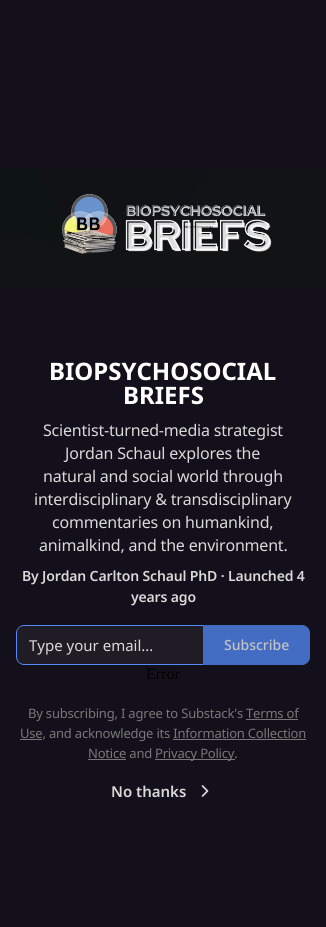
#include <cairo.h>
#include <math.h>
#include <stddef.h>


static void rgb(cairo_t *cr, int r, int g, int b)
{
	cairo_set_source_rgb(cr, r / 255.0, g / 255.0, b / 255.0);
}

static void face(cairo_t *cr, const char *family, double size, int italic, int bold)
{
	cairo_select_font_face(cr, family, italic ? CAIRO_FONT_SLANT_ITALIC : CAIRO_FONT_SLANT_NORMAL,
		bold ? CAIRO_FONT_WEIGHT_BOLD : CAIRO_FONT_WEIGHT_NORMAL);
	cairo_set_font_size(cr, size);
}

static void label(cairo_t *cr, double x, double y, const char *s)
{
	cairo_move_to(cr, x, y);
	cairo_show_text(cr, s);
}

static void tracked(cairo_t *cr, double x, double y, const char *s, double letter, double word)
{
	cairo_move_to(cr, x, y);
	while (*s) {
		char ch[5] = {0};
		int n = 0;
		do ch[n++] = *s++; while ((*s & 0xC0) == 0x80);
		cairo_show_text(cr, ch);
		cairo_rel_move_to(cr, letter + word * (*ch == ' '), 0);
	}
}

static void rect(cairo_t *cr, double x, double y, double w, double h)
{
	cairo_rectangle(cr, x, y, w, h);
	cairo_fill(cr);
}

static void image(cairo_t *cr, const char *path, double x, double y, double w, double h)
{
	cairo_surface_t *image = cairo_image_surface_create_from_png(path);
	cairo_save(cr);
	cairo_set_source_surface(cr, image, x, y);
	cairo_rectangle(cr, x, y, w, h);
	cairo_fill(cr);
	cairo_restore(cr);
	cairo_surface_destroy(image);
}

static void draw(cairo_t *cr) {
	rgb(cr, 20, 16, 27);
	cairo_paint(cr);
	image(cr, "image0.png", 0, 168, 326, 119);
	face(cr, "Noto Sans", 24, 0, 1);
	rgb(cr, 255, 255, 255);
	label(cr, 49, 380, "BIOPSYCHOSOCIAL");
	label(cr, 123, 404, "BRIEFS");
	face(cr, "Noto Sans", 16, 0, 0);
	rgb(cr, 217, 217, 217);
	tracked(cr, 43, 436, "Scientist-turned-media strategist", -0.2, 0);
	tracked(cr, 65, 459, "Jordan Schaul explores the", -0.2, 0);
	tracked(cr, 43, 482, "natural and social world through", -0.2, 0);
	tracked(cr, 34, 505, "interdisciplinary & transdisciplinary", -0.2, 0);
	tracked(cr, 52, 528, "commentaries on humankind,", -0.2, 0);
	tracked(cr, 39, 551, "animalkind, and the environment.", -0.2, 0);
	face(cr, "Noto Sans SemiBold", 14, 0, 0);
	tracked(cr, 22, 581, "By Jordan Carlton Schaul PhD · Launched 4", -0.15, 0);
	tracked(cr, 131, 602, "years ago", -0.15, 0);
	rgb(cr, 32, 28, 38);
	cairo_new_path(cr);
	cairo_move_to(cr, 24, 626);
	cairo_line_to(cr, 203, 626);
	cairo_line_to(cr, 203, 664);
	cairo_line_to(cr, 24, 664);
	cairo_curve_to(cr, 20, 664, 17, 661, 17, 657);
	cairo_line_to(cr, 17, 633);
	cairo_curve_to(cr, 17, 629, 20, 626, 24, 626);
	cairo_close_path(cr);
	cairo_fill(cr);
	rgb(cr, 83, 140, 250);
	cairo_set_fill_rule(cr, CAIRO_FILL_RULE_EVEN_ODD);
	cairo_new_path(cr);
	cairo_move_to(cr, 24, 625);
	cairo_line_to(cr, 203, 625);
	cairo_line_to(cr, 203, 665);
	cairo_line_to(cr, 24, 665);
	cairo_curve_to(cr, 20, 665, 16, 661, 16, 657);
	cairo_line_to(cr, 16, 633);
	cairo_curve_to(cr, 16, 629, 20, 625, 24, 625);
	cairo_close_path(cr);
	cairo_move_to(cr, 24, 626);
	cairo_line_to(cr, 203, 626);
	cairo_line_to(cr, 203, 664);
	cairo_line_to(cr, 24, 664);
	cairo_curve_to(cr, 20, 664, 17, 661, 17, 657);
	cairo_line_to(cr, 17, 633);
	cairo_curve_to(cr, 17, 629, 20, 626, 24, 626);
	cairo_close_path(cr);
	cairo_fill(cr);
	face(cr, "Noto Sans", 15, 0, 0);
	rgb(cr, 217, 217, 217);
	label(cr, 29, 651, "Type your email...");
	rgb(cr, 67, 109, 194);
	cairo_new_path(cr);
	cairo_move_to(cr, 203.5, 625.5);
	cairo_line_to(cr, 302, 625.5);
	cairo_curve_to(cr, 306, 625.5, 309.5, 629, 309.5, 633);
	cairo_line_to(cr, 309.5, 657);
	cairo_curve_to(cr, 309.5, 661, 306, 664.5, 302, 664.5);
	cairo_line_to(cr, 203.5, 664.5);
	cairo_close_path(cr);
	cairo_fill_preserve(cr);
	cairo_set_line_width(cr, 1);
	cairo_stroke(cr);
	face(cr, "Noto Sans Medium", 14, 0, 0);
	rgb(cr, 196, 195, 198);
	label(cr, 224, 650, "Subscribe");
	face(cr, "Liberation Serif", 16, 0, 0);
	rgb(cr, 0, 0, 0);
	label(cr, 146, 679, "Error");
	face(cr, "Noto Sans", 13, 0, 0);
	rgb(cr, 119, 119, 119);
	tracked(cr, 28, 718, "By subscribing, I agree to Substack's Terms of", -0.2, 0);
	rect(cr, 20, 739, 22, 1);
	tracked(cr, 20, 738, "Use, and acknowledge its Information Collection", -0.2, 0);
	rect(cr, 246, 719, 52, 1);
	tracked(cr, 88, 758, "Notice and", -0.2, 0);
	rect(cr, 173, 739, 133, 1);
	rect(cr, 88, 759, 38, 1);
	rect(cr, 155, 759, 80, 1);
	tracked(cr, 155, 758, "Privacy Policy.", -0.2, 0);
	face(cr, "Noto Sans SemiBold", 15, 0, 0);
	rgb(cr, 217, 217, 217);
	label(cr, 111, 797, "No thanks");
	cairo_new_path(cr);
	cairo_move_to(cr, 202.5, 796);
	cairo_line_to(cr, 207.5, 791);
	cairo_line_to(cr, 202.5, 786);
	cairo_set_line_width(cr, 1.7);
	cairo_set_line_cap(cr, CAIRO_LINE_CAP_ROUND);
	cairo_set_line_join(cr, CAIRO_LINE_JOIN_ROUND);
	cairo_stroke(cr);
}

int main(void) {
	cairo_surface_t *surface = cairo_image_surface_create(CAIRO_FORMAT_RGB24, 326, 927);
	cairo_t *cr = cairo_create(surface);
	cairo_font_options_t *options = cairo_font_options_create();
	cairo_font_options_set_hint_metrics(options, CAIRO_HINT_METRICS_OFF);
	cairo_font_options_set_hint_style(options, CAIRO_HINT_STYLE_NONE);
	cairo_set_font_options(cr, options);
	cairo_set_miter_limit(cr, 4);
	draw(cr);
	cairo_surface_write_to_png(surface, "render.png");
	cairo_font_options_destroy(options);
	cairo_destroy(cr);
	cairo_surface_destroy(surface);
	return 0;
}
